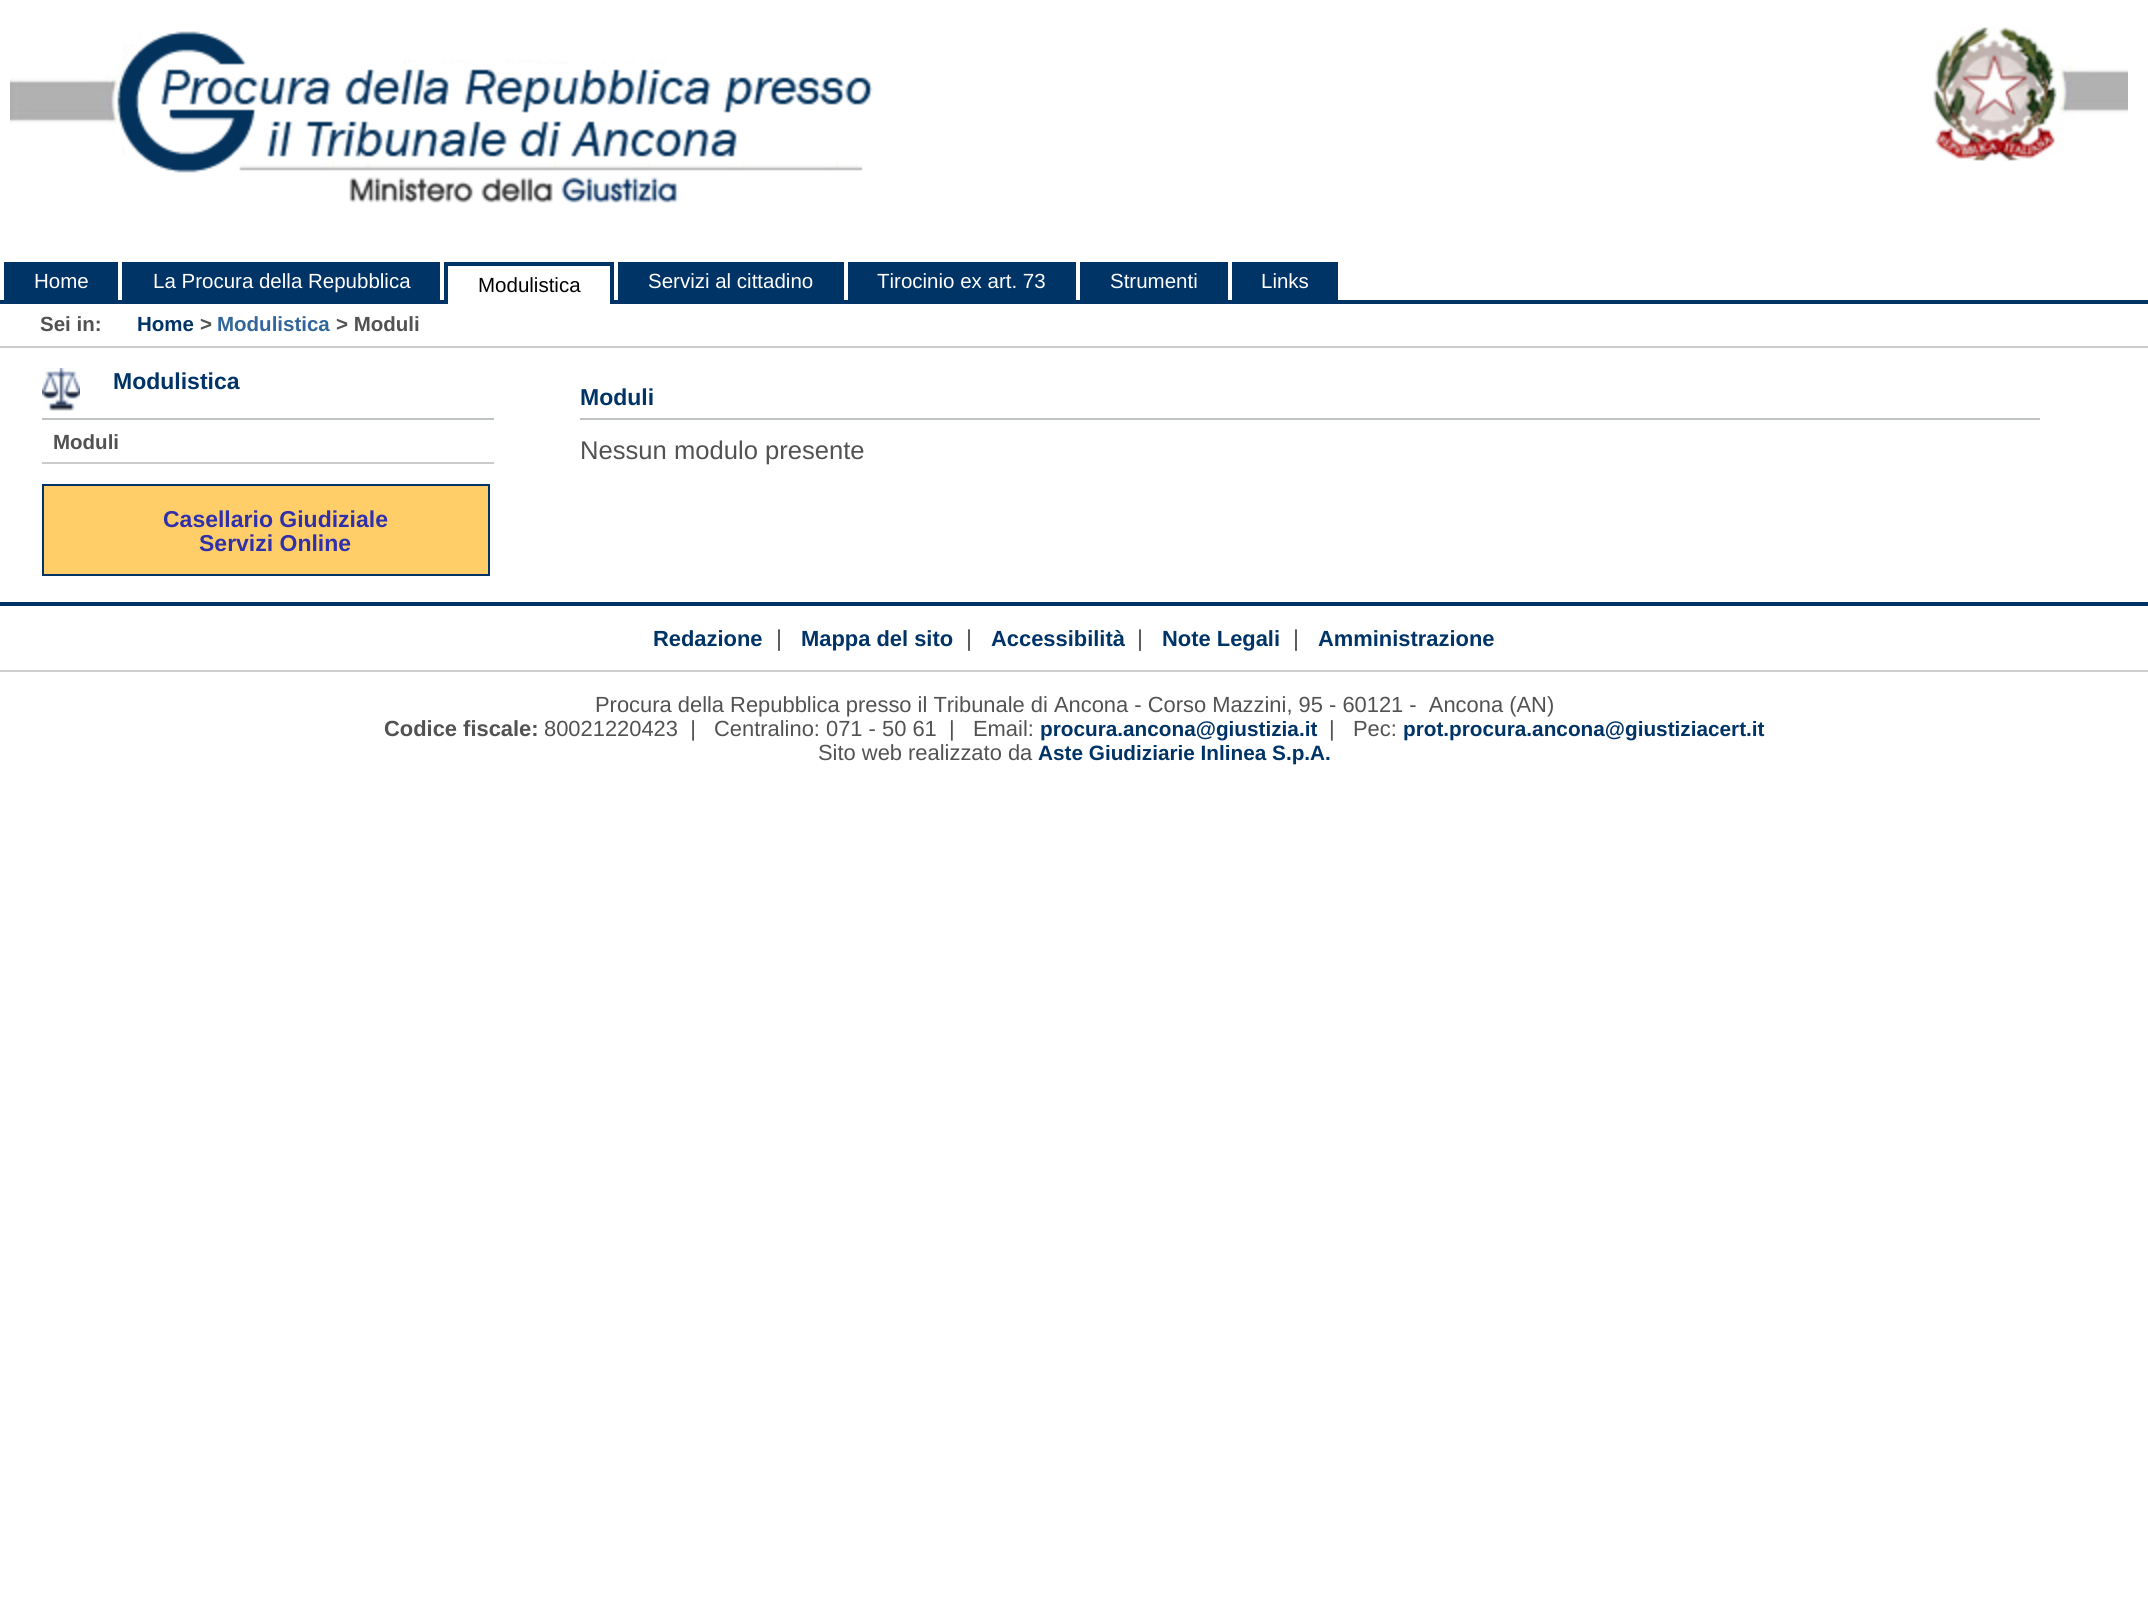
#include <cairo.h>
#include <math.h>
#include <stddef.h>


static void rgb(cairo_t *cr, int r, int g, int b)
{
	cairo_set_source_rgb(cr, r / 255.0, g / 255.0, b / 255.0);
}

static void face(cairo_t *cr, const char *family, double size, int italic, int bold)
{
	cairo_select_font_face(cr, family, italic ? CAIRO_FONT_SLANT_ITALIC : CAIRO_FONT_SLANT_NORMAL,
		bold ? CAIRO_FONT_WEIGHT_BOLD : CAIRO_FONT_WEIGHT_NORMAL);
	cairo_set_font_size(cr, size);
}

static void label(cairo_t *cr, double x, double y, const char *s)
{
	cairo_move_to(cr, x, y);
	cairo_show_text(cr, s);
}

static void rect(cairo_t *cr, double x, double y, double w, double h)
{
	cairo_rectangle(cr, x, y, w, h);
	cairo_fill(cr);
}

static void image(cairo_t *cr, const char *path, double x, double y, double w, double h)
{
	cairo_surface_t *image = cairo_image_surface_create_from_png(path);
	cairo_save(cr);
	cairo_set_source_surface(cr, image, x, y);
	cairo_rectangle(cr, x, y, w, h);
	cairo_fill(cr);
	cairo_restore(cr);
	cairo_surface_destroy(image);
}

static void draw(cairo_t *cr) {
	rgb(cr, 255, 255, 255);
	cairo_paint(cr);
	rgb(cr, 0, 51, 102);
	rect(cr, 0, 300, 2148, 4);
	image(cr, "image0.png", 10, 31, 863, 172);
	image(cr, "image1.png", 1933, 27, 195, 134);
	rect(cr, 4, 262, 114, 38);
	face(cr, "Liberation Sans", 20.5, 0, 0);
	rgb(cr, 255, 255, 255);
	label(cr, 34, 288, "Home");
	rgb(cr, 0, 51, 102);
	rect(cr, 122, 262, 318, 38);
	rgb(cr, 255, 255, 255);
	label(cr, 153, 288, "La Procura della Repubblica");
	rect(cr, 448, 300, 162, 4);
	rgb(cr, 0, 51, 102);
	rect(cr, 444, 262, 170, 4);
	rect(cr, 610, 262, 4, 42);
	rect(cr, 444, 262, 4, 42);
	rgb(cr, 0, 0, 0);
	label(cr, 478, 292, "Modulistica");
	rgb(cr, 0, 51, 102);
	rect(cr, 618, 262, 226, 38);
	rgb(cr, 255, 255, 255);
	label(cr, 648, 288, "Servizi al cittadino");
	rgb(cr, 0, 51, 102);
	rect(cr, 848, 262, 228, 38);
	rgb(cr, 255, 255, 255);
	label(cr, 877, 288, "Tirocinio ex art. 73");
	rgb(cr, 0, 51, 102);
	rect(cr, 1080, 262, 148, 38);
	rgb(cr, 255, 255, 255);
	label(cr, 1110, 288, "Strumenti");
	rgb(cr, 0, 51, 102);
	rect(cr, 1232, 262, 106, 38);
	rgb(cr, 255, 255, 255);
	label(cr, 1261, 288, "Links");
	rgb(cr, 204, 204, 204);
	rect(cr, 0, 346, 2148, 2);
	face(cr, "Liberation Sans", 20.5, 0, 1);
	rgb(cr, 82, 82, 82);
	label(cr, 40, 331, "Sei in:");
	rgb(cr, 0, 51, 102);
	label(cr, 137, 331, "Home");
	rgb(cr, 82, 82, 82);
	label(cr, 200, 331, ">");
	rgb(cr, 51, 102, 153);
	label(cr, 217, 331, "Modulistica");
	rgb(cr, 82, 82, 82);
	label(cr, 336, 331, "> Moduli");
	image(cr, "image2.png", 42, 368, 38, 43);
	rgb(cr, 191, 195, 195);
	rect(cr, 42, 418, 452, 2);
	face(cr, "Liberation Sans", 23, 0, 1);
	rgb(cr, 0, 51, 102);
	label(cr, 113, 389, "Modulistica");
	rgb(cr, 204, 204, 204);
	rect(cr, 42, 462, 452, 2);
	face(cr, "Liberation Sans", 20.5, 0, 1);
	rgb(cr, 82, 82, 82);
	label(cr, 53, 449, "Moduli");
	rgb(cr, 255, 206, 104);
	cairo_rectangle(cr, 43, 485, 446, 90);
	cairo_fill_preserve(cr);
	rgb(cr, 0, 51, 102);
	cairo_stroke(cr);
	face(cr, "Liberation Sans", 23, 0, 1);
	rgb(cr, 49, 48, 171);
	label(cr, 163, 527, "Casellario Giudiziale");
	label(cr, 199, 551, "Servizi Online");
	rgb(cr, 191, 195, 195);
	rect(cr, 580, 418, 1460, 2);
	rgb(cr, 0, 51, 102);
	label(cr, 580, 405, "Moduli");
	face(cr, "Liberation Sans", 25.6, 0, 0);
	rgb(cr, 82, 82, 82);
	label(cr, 580, 459, "Nessun modulo presente");
	rgb(cr, 0, 51, 102);
	rect(cr, 0, 602, 2148, 4);
	face(cr, "Liberation Sans", 21.9, 0, 1);
	label(cr, 653, 646, "Redazione");
	face(cr, "Liberation Sans", 23, 0, 0);
	rgb(cr, 82, 82, 82);
	label(cr, 776, 646, "|");
	face(cr, "Liberation Sans", 21.9, 0, 1);
	rgb(cr, 0, 51, 102);
	label(cr, 801, 646, "Mappa del sito");
	face(cr, "Liberation Sans", 23, 0, 0);
	rgb(cr, 82, 82, 82);
	label(cr, 966, 646, "|");
	face(cr, "Liberation Sans", 21.9, 0, 1);
	rgb(cr, 0, 51, 102);
	label(cr, 991, 646, "Accessibilità");
	face(cr, "Liberation Sans", 23, 0, 0);
	rgb(cr, 82, 82, 82);
	label(cr, 1137, 646, "|");
	face(cr, "Liberation Sans", 21.9, 0, 1);
	rgb(cr, 0, 51, 102);
	label(cr, 1162, 646, "Note Legali");
	face(cr, "Liberation Sans", 23, 0, 0);
	rgb(cr, 82, 82, 82);
	label(cr, 1293, 646, "|");
	face(cr, "Liberation Sans", 21.9, 0, 1);
	rgb(cr, 0, 51, 102);
	label(cr, 1318, 646, "Amministrazione");
	rgb(cr, 206, 206, 206);
	rect(cr, 0, 670, 2148, 2);
	face(cr, "Liberation Sans", 21.9, 0, 0);
	rgb(cr, 82, 82, 82);
	label(cr, 595, 712, "Procura della Repubblica presso il Tribunale di Ancona - Corso Mazzini, 95 - 60121 -  Ancona (AN)");
	face(cr, "Liberation Sans", 21.9, 0, 1);
	label(cr, 384, 736, "Codice fiscale:");
	face(cr, "Liberation Sans", 21.9, 0, 0);
	label(cr, 544, 736, "80021220423  |");
	label(cr, 714, 736, "Centralino: 071 - 50 61  |");
	label(cr, 973, 736, "Email:");
	face(cr, "Liberation Sans", 20.75, 0, 1);
	rgb(cr, 0, 51, 102);
	label(cr, 1040, 736, "procura.ancona@giustizia.it");
	face(cr, "Liberation Sans", 21.9, 0, 0);
	rgb(cr, 82, 82, 82);
	label(cr, 1329, 736, "|");
	label(cr, 1353, 736, "Pec:");
	face(cr, "Liberation Sans", 20.75, 0, 1);
	rgb(cr, 0, 51, 102);
	label(cr, 1403, 736, "prot.procura.ancona@giustiziacert.it");
	face(cr, "Liberation Sans", 21.9, 0, 0);
	rgb(cr, 82, 82, 82);
	label(cr, 818, 760, "Sito web realizzato da");
	face(cr, "Liberation Sans", 20.75, 0, 1);
	rgb(cr, 0, 51, 102);
	label(cr, 1038, 760, "Aste Giudiziarie Inlinea S.p.A.");
}

int main(void) {
	cairo_surface_t *surface = cairo_image_surface_create(CAIRO_FORMAT_RGB24, 2148, 1602);
	cairo_t *cr = cairo_create(surface);
	cairo_font_options_t *options = cairo_font_options_create();
	cairo_font_options_set_hint_metrics(options, CAIRO_HINT_METRICS_OFF);
	cairo_font_options_set_hint_style(options, CAIRO_HINT_STYLE_NONE);
	cairo_set_font_options(cr, options);
	cairo_set_miter_limit(cr, 4);
	draw(cr);
	cairo_surface_write_to_png(surface, "render.png");
	cairo_font_options_destroy(options);
	cairo_destroy(cr);
	cairo_surface_destroy(surface);
	return 0;
}
